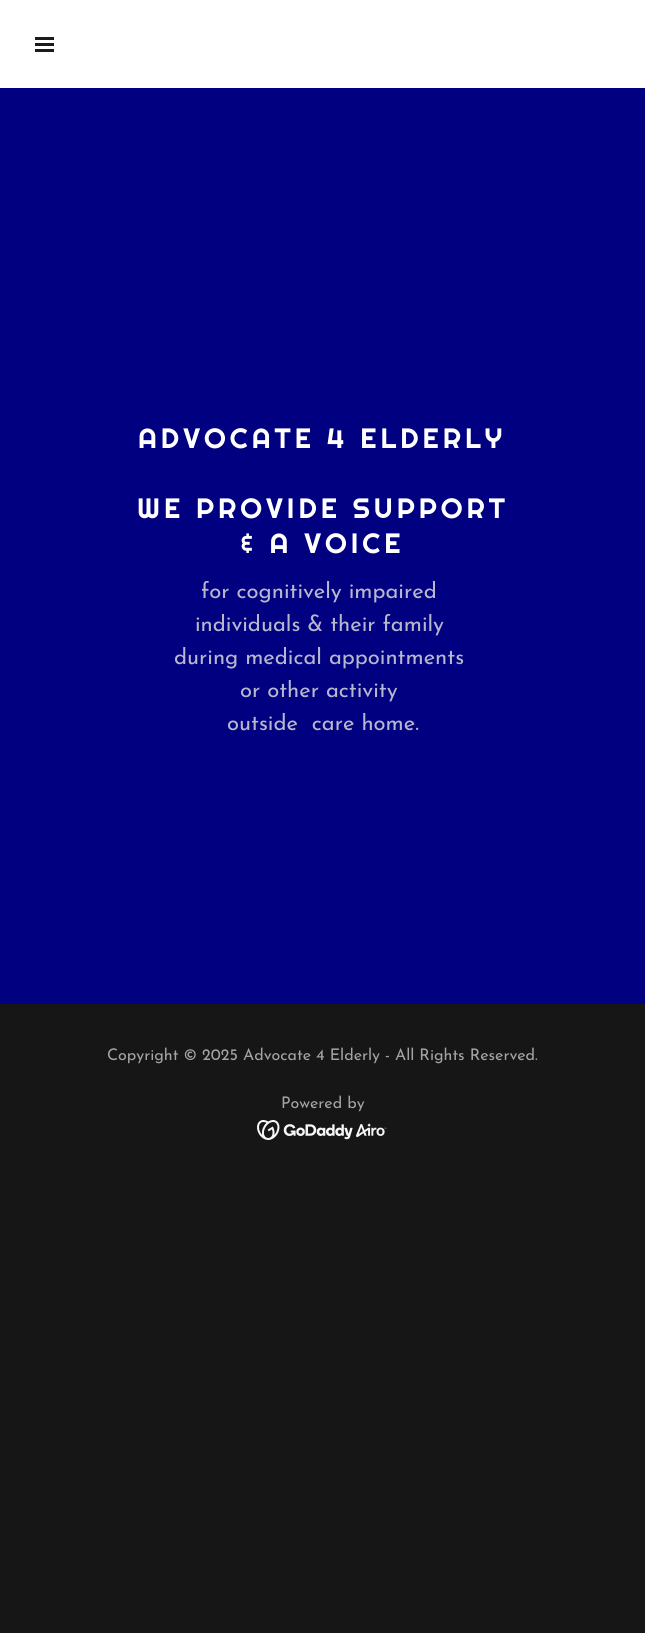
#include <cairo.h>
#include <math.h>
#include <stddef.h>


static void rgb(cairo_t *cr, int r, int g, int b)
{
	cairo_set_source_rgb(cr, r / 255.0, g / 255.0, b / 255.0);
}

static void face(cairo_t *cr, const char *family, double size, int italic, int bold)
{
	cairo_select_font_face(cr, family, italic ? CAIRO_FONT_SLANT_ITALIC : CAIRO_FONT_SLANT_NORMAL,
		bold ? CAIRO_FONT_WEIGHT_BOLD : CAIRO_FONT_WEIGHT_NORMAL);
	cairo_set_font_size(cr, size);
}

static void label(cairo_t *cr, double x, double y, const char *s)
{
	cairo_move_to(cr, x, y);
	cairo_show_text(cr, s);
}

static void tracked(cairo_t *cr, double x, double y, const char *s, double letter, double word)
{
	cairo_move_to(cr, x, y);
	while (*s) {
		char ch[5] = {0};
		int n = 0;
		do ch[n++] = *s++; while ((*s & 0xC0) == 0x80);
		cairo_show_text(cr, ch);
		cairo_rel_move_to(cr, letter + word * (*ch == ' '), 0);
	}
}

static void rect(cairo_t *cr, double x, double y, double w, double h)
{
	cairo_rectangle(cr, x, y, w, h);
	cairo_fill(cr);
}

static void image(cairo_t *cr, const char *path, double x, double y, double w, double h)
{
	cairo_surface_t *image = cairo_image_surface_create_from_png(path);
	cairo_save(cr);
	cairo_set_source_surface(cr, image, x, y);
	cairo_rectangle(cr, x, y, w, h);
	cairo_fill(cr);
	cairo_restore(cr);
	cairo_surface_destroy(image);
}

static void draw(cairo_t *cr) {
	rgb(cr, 22, 22, 22);
	cairo_paint(cr);
	rgb(cr, 0, 0, 128);
	rect(cr, 0, 88, 645, 916);
	rgb(cr, 255, 255, 255);
	rect(cr, 0, 0, 645, 88);
	rgb(cr, 27, 27, 27);
	rect(cr, 35, 37, 19, 3);
	rect(cr, 35, 43, 19, 3);
	rect(cr, 35, 49, 19, 3);
	face(cr, "Righteous", 28, 0, 0);
	rgb(cr, 255, 255, 255);
	tracked(cr, 138, 448, "ADVOCATE 4 ELDERLY", 4, 0);
	tracked(cr, 137, 518, "WE PROVIDE SUPPORT", 4, 0);
	tracked(cr, 240, 553, "& A VOICE", 4, 0);
	face(cr, "Josefin Sans", 22, 0, 0);
	rgb(cr, 183, 183, 206);
	label(cr, 201, 598, "for cognitively impaired");
	label(cr, 195, 631, "individuals & their family");
	label(cr, 174, 664, "during medical appointments");
	label(cr, 240, 697, "or other activity");
	label(cr, 227, 730, "outside  care home.");
	face(cr, "Josefin Sans", 16, 0, 0);
	rgb(cr, 164, 164, 164);
	label(cr, 107, 1060, "Copyright © 2025 Advocate 4 Elderly - All Rights Reserved.");
	label(cr, 281, 1108, "Powered by");
	image(cr, "image0.png", 257, 1120, 130, 20);
}

int main(void) {
	cairo_surface_t *surface = cairo_image_surface_create(CAIRO_FORMAT_RGB24, 645, 1633);
	cairo_t *cr = cairo_create(surface);
	cairo_font_options_t *options = cairo_font_options_create();
	cairo_font_options_set_hint_metrics(options, CAIRO_HINT_METRICS_OFF);
	cairo_font_options_set_hint_style(options, CAIRO_HINT_STYLE_NONE);
	cairo_set_font_options(cr, options);
	cairo_set_miter_limit(cr, 4);
	draw(cr);
	cairo_surface_write_to_png(surface, "render.png");
	cairo_font_options_destroy(options);
	cairo_destroy(cr);
	cairo_surface_destroy(surface);
	return 0;
}
